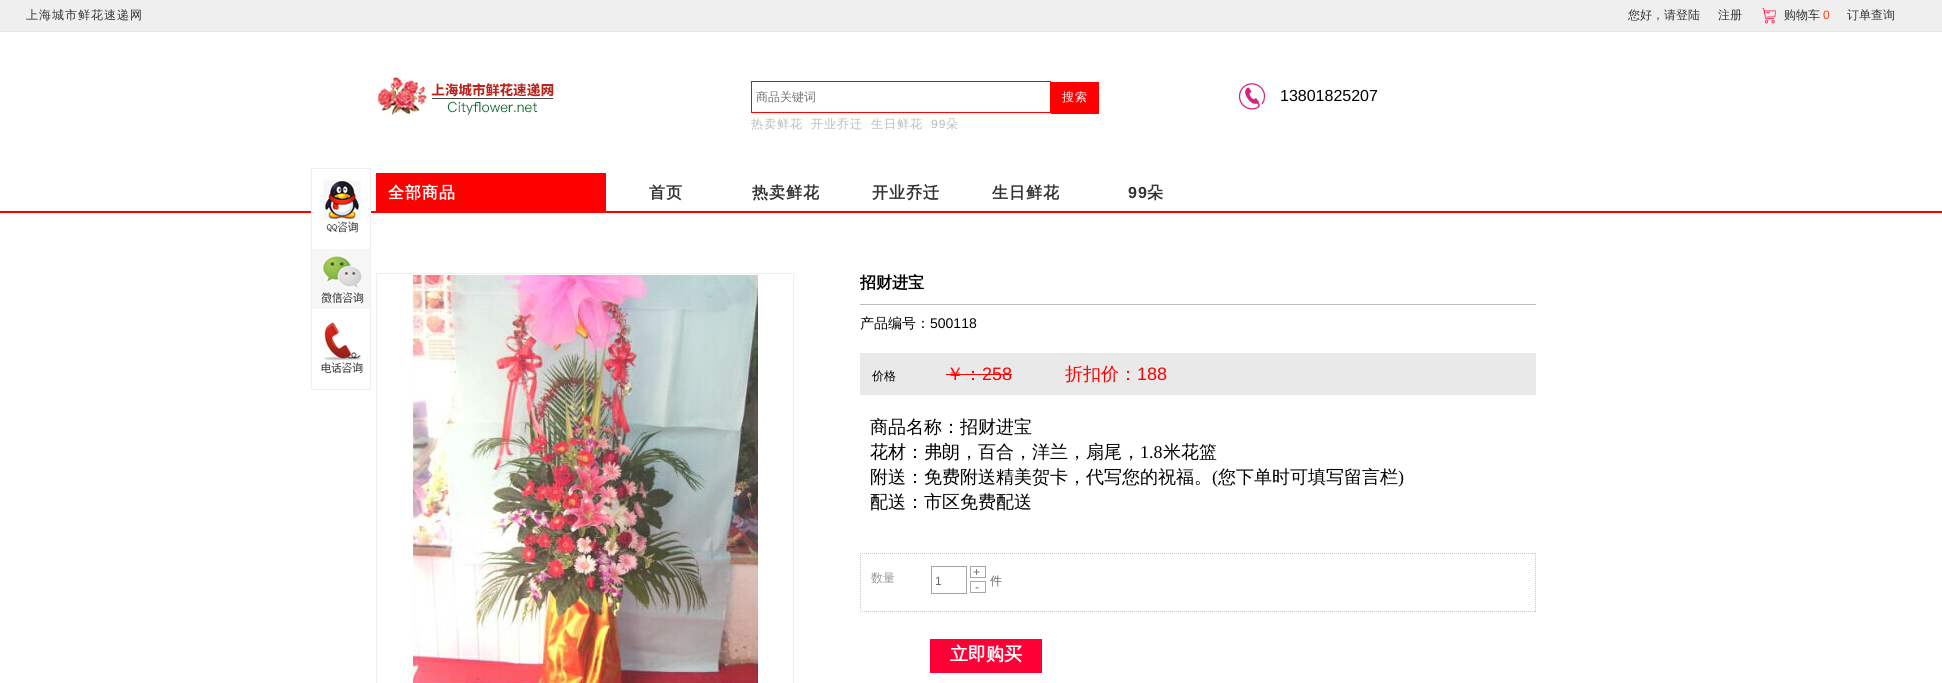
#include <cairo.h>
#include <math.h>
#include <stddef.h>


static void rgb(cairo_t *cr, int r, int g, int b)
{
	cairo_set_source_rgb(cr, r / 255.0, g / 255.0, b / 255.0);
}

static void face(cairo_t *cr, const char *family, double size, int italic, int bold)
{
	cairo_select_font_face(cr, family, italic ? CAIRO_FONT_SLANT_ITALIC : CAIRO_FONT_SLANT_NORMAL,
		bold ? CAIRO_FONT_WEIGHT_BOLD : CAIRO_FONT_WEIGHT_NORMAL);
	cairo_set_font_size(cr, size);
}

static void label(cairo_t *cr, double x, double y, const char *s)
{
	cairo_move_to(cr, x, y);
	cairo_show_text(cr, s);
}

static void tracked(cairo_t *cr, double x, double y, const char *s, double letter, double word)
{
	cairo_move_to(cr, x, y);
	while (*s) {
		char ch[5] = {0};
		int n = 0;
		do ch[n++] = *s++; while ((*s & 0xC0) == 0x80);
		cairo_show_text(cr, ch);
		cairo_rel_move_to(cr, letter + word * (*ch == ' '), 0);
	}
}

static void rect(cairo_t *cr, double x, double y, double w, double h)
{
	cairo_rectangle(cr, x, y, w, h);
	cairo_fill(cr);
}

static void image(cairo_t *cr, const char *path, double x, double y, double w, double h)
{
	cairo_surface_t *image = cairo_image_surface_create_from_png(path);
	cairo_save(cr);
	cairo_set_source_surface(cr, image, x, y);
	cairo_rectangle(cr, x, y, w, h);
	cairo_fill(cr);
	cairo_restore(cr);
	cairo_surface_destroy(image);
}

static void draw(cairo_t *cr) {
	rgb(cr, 255, 255, 255);
	cairo_paint(cr);
	rgb(cr, 239, 239, 239);
	rect(cr, 0, 0, 1942, 31);
	rgb(cr, 230, 230, 230);
	rect(cr, 0, 31, 1942, 1);
	face(cr, "WenQuanYi Zen Hei Medium", 12, 0, 0);
	rgb(cr, 51, 51, 51);
	tracked(cr, 26, 19, "上海城市鲜花速递网", 1, 0);
	label(cr, 1628, 19, "您好，请登陆");
	label(cr, 1718, 19, "注册");
	image(cr, "image0.png", 1762, 7, 15, 17);
	label(cr, 1784, 19, "购物车");
	face(cr, "Liberation Sans", 12, 0, 0);
	rgb(cr, 255, 69, 0);
	label(cr, 1823, 19, "0");
	face(cr, "WenQuanYi Zen Hei Medium", 12, 0, 0);
	rgb(cr, 51, 51, 51);
	label(cr, 1847, 19, "订单查询");
	image(cr, "image1.png", 377, 76, 177, 44);
	cairo_rectangle(cr, 751.5, 81.5, 299, 31);
	rgb(cr, 255, 0, 0);
	cairo_set_line_width(cr, 1);
	cairo_stroke(cr);
	rgb(cr, 117, 117, 117);
	label(cr, 756, 101, "商品关键词");
	rgb(cr, 255, 0, 0);
	rect(cr, 1051, 82, 48, 32);
	rgb(cr, 255, 255, 255);
	tracked(cr, 1062, 101, "搜索", 1, 0);
	rgb(cr, 187, 187, 187);
	tracked(cr, 751, 128, "热卖鲜花", 1, 0);
	tracked(cr, 811, 128, "开业乔迁", 1, 0);
	tracked(cr, 871, 128, "生日鲜花", 1, 0);
	face(cr, "Liberation Sans", 12, 0, 0);
	tracked(cr, 931, 128, "99", 1, 0);
	face(cr, "WenQuanYi Zen Hei Medium", 12, 0, 0);
	tracked(cr, 946, 128, "朵", 1, 0);
	image(cr, "image2.png", 1238, 83, 28, 27);
	face(cr, "Liberation Sans", 16, 0, 0);
	rgb(cr, 0, 0, 0);
	label(cr, 1280, 101, "13801825207");
	rgb(cr, 255, 0, 0);
	rect(cr, 0, 211, 1942, 2);
	rect(cr, 376, 173, 230, 38);
	face(cr, "WenQuanYi Zen Hei", 16, 0, 1);
	rgb(cr, 255, 255, 255);
	tracked(cr, 388, 198, "全部商品", 1, 0);
	rgb(cr, 51, 51, 51);
	tracked(cr, 649, 198, "首页", 1, 0);
	tracked(cr, 752, 198, "热卖鲜花", 1, 0);
	tracked(cr, 872, 198, "开业乔迁", 1, 0);
	tracked(cr, 992, 198, "生日鲜花", 1, 0);
	face(cr, "Liberation Sans", 16, 0, 1);
	tracked(cr, 1128, 198, "99", 1, 0);
	face(cr, "WenQuanYi Zen Hei", 16, 0, 1);
	tracked(cr, 1147, 198, "朵", 1, 0);
	rgb(cr, 255, 255, 255);
	rect(cr, 312, 211, 58, 2);
	cairo_rectangle(cr, 311.5, 168.5, 59, 221);
	rgb(cr, 239, 239, 239);
	cairo_stroke(cr);
	image(cr, "image3.png", 323, 180, 38, 53);
	image(cr, "image4.png", 312, 249, 58, 60);
	image(cr, "image5.png", 321, 322, 42, 52);
	cairo_rectangle(cr, 376.5, 273.5, 417, 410);
	cairo_stroke(cr);
	image(cr, "image6.png", 413, 275, 345, 408);
	rgb(cr, 187, 187, 187);
	rect(cr, 860, 304, 676, 1);
	rgb(cr, 0, 0, 0);
	label(cr, 860, 288, "招财进宝");
	face(cr, "WenQuanYi Zen Hei Medium", 14, 0, 0);
	label(cr, 860, 328, "产品编号：");
	face(cr, "Liberation Sans", 14, 0, 0);
	label(cr, 930, 328, "500118");
	rgb(cr, 233, 233, 233);
	rect(cr, 860, 353, 676, 42);
	face(cr, "WenQuanYi Zen Hei Medium", 12, 0, 0);
	rgb(cr, 0, 0, 0);
	label(cr, 872, 380, "价格");
	face(cr, "WenQuanYi Zen Hei Medium", 18, 0, 0);
	rgb(cr, 255, 0, 0);
	label(cr, 946, 380, "￥：");
	face(cr, "Liberation Sans", 18, 0, 0);
	label(cr, 982, 380, "258");
	rect(cr, 946, 374, 36, 1);
	rect(cr, 982, 374, 30, 1);
	face(cr, "WenQuanYi Zen Hei Medium", 18, 0, 0);
	label(cr, 1065, 380, "折扣价：");
	face(cr, "Liberation Sans", 18, 0, 0);
	label(cr, 1137, 380, "188");
	face(cr, "WenQuanYi Zen Hei Medium", 18, 0, 0);
	rgb(cr, 0, 0, 0);
	label(cr, 870, 433, "商品名称：招财进宝");
	label(cr, 870, 458, "花材：弗朗，百合，洋兰，扇尾，");
	face(cr, "Liberation Serif", 18, 0, 0);
	label(cr, 1140, 458, "1.8");
	face(cr, "WenQuanYi Zen Hei Medium", 18, 0, 0);
	label(cr, 1163, 458, "米花篮");
	label(cr, 870, 483, "附送：免费附送精美贺卡，代写您的祝福。");
	face(cr, "Liberation Serif", 18, 0, 0);
	label(cr, 1212, 483, "(");
	face(cr, "WenQuanYi Zen Hei Medium", 18, 0, 0);
	label(cr, 1218, 483, "您下单时可填写留言栏");
	face(cr, "Liberation Serif", 18, 0, 0);
	label(cr, 1398, 483, ")");
	face(cr, "WenQuanYi Zen Hei Medium", 18, 0, 0);
	label(cr, 870, 508, "配送：市区免费配送");
	cairo_new_path(cr);
	cairo_move_to(cr, 860, 553.5);
	cairo_line_to(cr, 1536, 553.5);
	rgb(cr, 201, 201, 201);
	cairo_set_dash(cr, (double[]){1, 1}, 2, 0);
	cairo_stroke(cr);
	cairo_new_path(cr);
	cairo_move_to(cr, 1535.5, 553);
	cairo_line_to(cr, 1535.5, 612);
	cairo_stroke(cr);
	cairo_new_path(cr);
	cairo_move_to(cr, 860, 611.5);
	cairo_line_to(cr, 1536, 611.5);
	cairo_stroke(cr);
	cairo_new_path(cr);
	cairo_move_to(cr, 860.5, 553);
	cairo_line_to(cr, 860.5, 612);
	cairo_stroke(cr);
	face(cr, "WenQuanYi Zen Hei Medium", 12, 0, 0);
	rgb(cr, 153, 153, 153);
	label(cr, 871, 582, "数量");
	cairo_rectangle(cr, 931.5, 566.5, 35, 27);
	rgb(cr, 167, 166, 172);
	cairo_set_dash(cr, NULL, 0, 0);
	cairo_stroke(cr);
	face(cr, "Liberation Sans", 12, 0, 0);
	rgb(cr, 102, 102, 102);
	label(cr, 935, 585, "1");
	cairo_rectangle(cr, 970.5, 566.5, 15, 11);
	rgb(cr, 167, 166, 171);
	cairo_stroke(cr);
	rgb(cr, 102, 102, 102);
	label(cr, 973, 576, "+");
	cairo_rectangle(cr, 970.5, 581.5, 15, 11);
	rgb(cr, 167, 166, 171);
	cairo_stroke(cr);
	rgb(cr, 102, 102, 102);
	label(cr, 975, 591, "-");
	face(cr, "WenQuanYi Zen Hei Medium", 12, 0, 0);
	label(cr, 990, 585, "件");
	rgb(cr, 255, 0, 54);
	rect(cr, 930, 639, 112, 34);
	face(cr, "WenQuanYi Zen Hei", 18, 0, 1);
	rgb(cr, 255, 255, 255);
	label(cr, 950, 660, "立即购买");
}

int main(void) {
	cairo_surface_t *surface = cairo_image_surface_create(CAIRO_FORMAT_RGB24, 1942, 683);
	cairo_t *cr = cairo_create(surface);
	cairo_font_options_t *options = cairo_font_options_create();
	cairo_font_options_set_hint_metrics(options, CAIRO_HINT_METRICS_OFF);
	cairo_font_options_set_hint_style(options, CAIRO_HINT_STYLE_NONE);
	cairo_set_font_options(cr, options);
	cairo_set_miter_limit(cr, 4);
	draw(cr);
	cairo_surface_write_to_png(surface, "render.png");
	cairo_font_options_destroy(options);
	cairo_destroy(cr);
	cairo_surface_destroy(surface);
	return 0;
}
